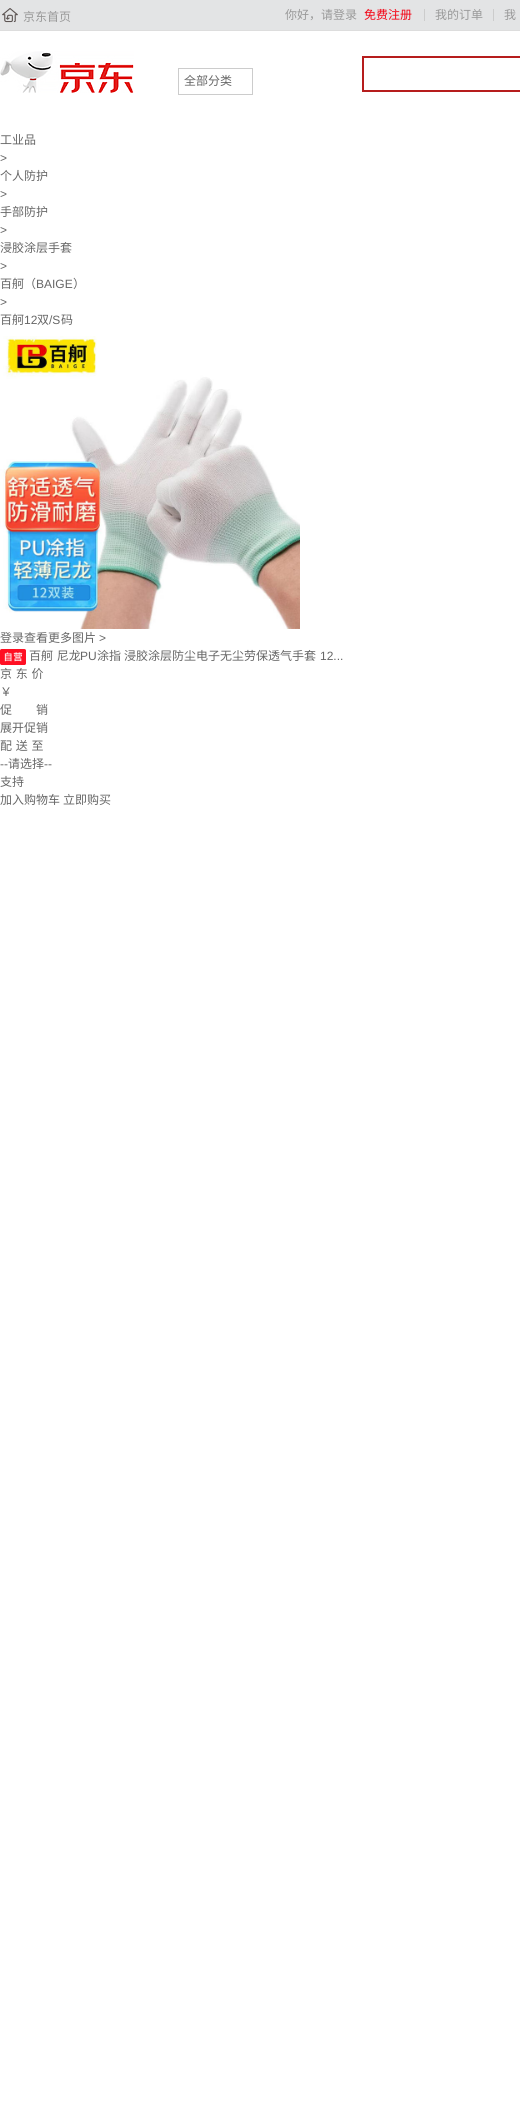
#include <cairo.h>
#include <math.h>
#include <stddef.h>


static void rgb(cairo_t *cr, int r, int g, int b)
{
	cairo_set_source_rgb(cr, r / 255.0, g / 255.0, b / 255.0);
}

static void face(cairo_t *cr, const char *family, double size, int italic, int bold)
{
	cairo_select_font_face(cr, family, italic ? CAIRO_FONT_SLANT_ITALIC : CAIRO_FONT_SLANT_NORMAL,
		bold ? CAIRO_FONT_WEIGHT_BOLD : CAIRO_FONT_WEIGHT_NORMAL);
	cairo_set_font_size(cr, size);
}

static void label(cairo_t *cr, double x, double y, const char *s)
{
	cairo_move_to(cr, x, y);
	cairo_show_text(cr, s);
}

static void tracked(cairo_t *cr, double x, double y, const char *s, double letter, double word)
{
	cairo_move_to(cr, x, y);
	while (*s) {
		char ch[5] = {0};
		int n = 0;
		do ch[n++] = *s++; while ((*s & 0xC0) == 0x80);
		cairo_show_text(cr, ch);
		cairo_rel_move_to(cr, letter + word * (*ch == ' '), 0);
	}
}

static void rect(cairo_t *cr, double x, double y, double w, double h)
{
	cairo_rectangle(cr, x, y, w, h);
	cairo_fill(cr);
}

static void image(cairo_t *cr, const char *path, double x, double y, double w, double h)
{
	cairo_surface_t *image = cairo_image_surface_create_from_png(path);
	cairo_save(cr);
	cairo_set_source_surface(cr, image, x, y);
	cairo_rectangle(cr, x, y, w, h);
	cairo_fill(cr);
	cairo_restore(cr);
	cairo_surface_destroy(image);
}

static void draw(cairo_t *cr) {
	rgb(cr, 255, 255, 255);
	cairo_paint(cr);
	rgb(cr, 227, 228, 229);
	rect(cr, 0, 0, 520, 30);
	rgb(cr, 221, 221, 221);
	rect(cr, 0, 30, 520, 1);
	image(cr, "image0.png", 2, 8, 16, 15);
	face(cr, "Noto Sans CJK SC", 12, 0, 0);
	rgb(cr, 153, 153, 153);
	label(cr, 23, 21, "京东首页");
	label(cr, 285, 19, "你好，请登录");
	rgb(cr, 243, 2, 19);
	label(cr, 364, 19, "免费注册");
	rgb(cr, 204, 204, 204);
	rect(cr, 424, 9, 1, 12);
	rgb(cr, 153, 153, 153);
	label(cr, 435, 19, "我的订单");
	rgb(cr, 204, 204, 204);
	rect(cr, 493, 9, 1, 12);
	rgb(cr, 153, 153, 153);
	label(cr, 504, 19, "我");
	image(cr, "image1.png", 0, 51, 134, 42);
	cairo_rectangle(cr, 178.5, 68.5, 74, 26);
	rgb(cr, 204, 204, 204);
	cairo_set_line_width(cr, 1);
	cairo_stroke(cr);
	rgb(cr, 102, 102, 102);
	label(cr, 184, 85, "全部分类");
	rgb(cr, 182, 29, 29);
	rect(cr, 362, 56, 158, 2);
	rect(cr, 362, 90, 158, 2);
	rect(cr, 362, 56, 2, 36);
	rgb(cr, 102, 102, 102);
	label(cr, 0, 144, "工业品");
	face(cr, "Liberation Sans", 12, 0, 0);
	label(cr, 0, 162, ">");
	face(cr, "Noto Sans CJK SC", 12, 0, 0);
	label(cr, 0, 180, "个人防护");
	face(cr, "Liberation Sans", 12, 0, 0);
	label(cr, 0, 198, ">");
	face(cr, "Noto Sans CJK SC", 12, 0, 0);
	label(cr, 0, 216, "手部防护");
	face(cr, "Liberation Sans", 12, 0, 0);
	label(cr, 0, 234, ">");
	face(cr, "Noto Sans CJK SC", 12, 0, 0);
	label(cr, 0, 252, "浸胶涂层手套");
	face(cr, "Liberation Sans", 12, 0, 0);
	label(cr, 0, 270, ">");
	face(cr, "Noto Sans CJK SC", 12, 0, 0);
	label(cr, 0, 288, "百舸（");
	face(cr, "Liberation Sans", 12, 0, 0);
	label(cr, 36, 288, "BAIGE");
	face(cr, "Noto Sans CJK SC", 12, 0, 0);
	label(cr, 73, 288, "）");
	face(cr, "Liberation Sans", 12, 0, 0);
	label(cr, 0, 306, ">");
	face(cr, "Noto Sans CJK SC", 12, 0, 0);
	label(cr, 0, 324, "百舸");
	face(cr, "Liberation Sans", 12, 0, 0);
	label(cr, 24, 324, "12");
	face(cr, "Noto Sans CJK SC", 12, 0, 0);
	label(cr, 37, 324, "双");
	face(cr, "Liberation Sans", 12, 0, 0);
	label(cr, 49, 324, "/S");
	face(cr, "Noto Sans CJK SC", 12, 0, 0);
	label(cr, 61, 324, "码");
	image(cr, "image2.png", 0, 336, 300, 293);
	label(cr, 0, 642, "登录查看更多图片");
	face(cr, "Liberation Sans", 12, 0, 0);
	label(cr, 99, 642, ">");
	image(cr, "image3.png", 0, 649, 26, 16);
	face(cr, "Noto Sans CJK SC", 12, 0, 0);
	tracked(cr, 29, 660, "百舸 尼龙", 0, 1);
	face(cr, "Liberation Sans", 12, 0, 0);
	label(cr, 80, 660, "PU");
	face(cr, "Noto Sans CJK SC", 12, 0, 0);
	label(cr, 97, 660, "涂指");
	label(cr, 124, 660, "浸胶涂层防尘电子无尘劳保透气手套");
	face(cr, "Liberation Sans", 12, 0, 0);
	label(cr, 320, 660, "12...");
	face(cr, "Noto Sans CJK SC", 12, 0, 0);
	tracked(cr, 0, 678, "京 东 价", 0, 1);
	label(cr, 0, 696, "￥");
	label(cr, 0, 714, "促　　销");
	label(cr, 0, 732, "展开促销");
	tracked(cr, 0, 750, "配 送 至", 0, 1);
	face(cr, "Liberation Sans", 12, 0, 0);
	label(cr, 0, 768, "--");
	face(cr, "Noto Sans CJK SC", 12, 0, 0);
	label(cr, 8, 768, "请选择");
	face(cr, "Liberation Sans", 12, 0, 0);
	label(cr, 44, 768, "--");
	face(cr, "Noto Sans CJK SC", 12, 0, 0);
	label(cr, 0, 786, "支持");
	label(cr, 0, 804, "加入购物车");
	label(cr, 63, 804, "立即购买");
}

int main(void) {
	cairo_surface_t *surface = cairo_image_surface_create(CAIRO_FORMAT_RGB24, 520, 2124);
	cairo_t *cr = cairo_create(surface);
	cairo_font_options_t *options = cairo_font_options_create();
	cairo_font_options_set_hint_metrics(options, CAIRO_HINT_METRICS_OFF);
	cairo_font_options_set_hint_style(options, CAIRO_HINT_STYLE_NONE);
	cairo_set_font_options(cr, options);
	cairo_set_miter_limit(cr, 4);
	draw(cr);
	cairo_surface_write_to_png(surface, "render.png");
	cairo_font_options_destroy(options);
	cairo_destroy(cr);
	cairo_surface_destroy(surface);
	return 0;
}
